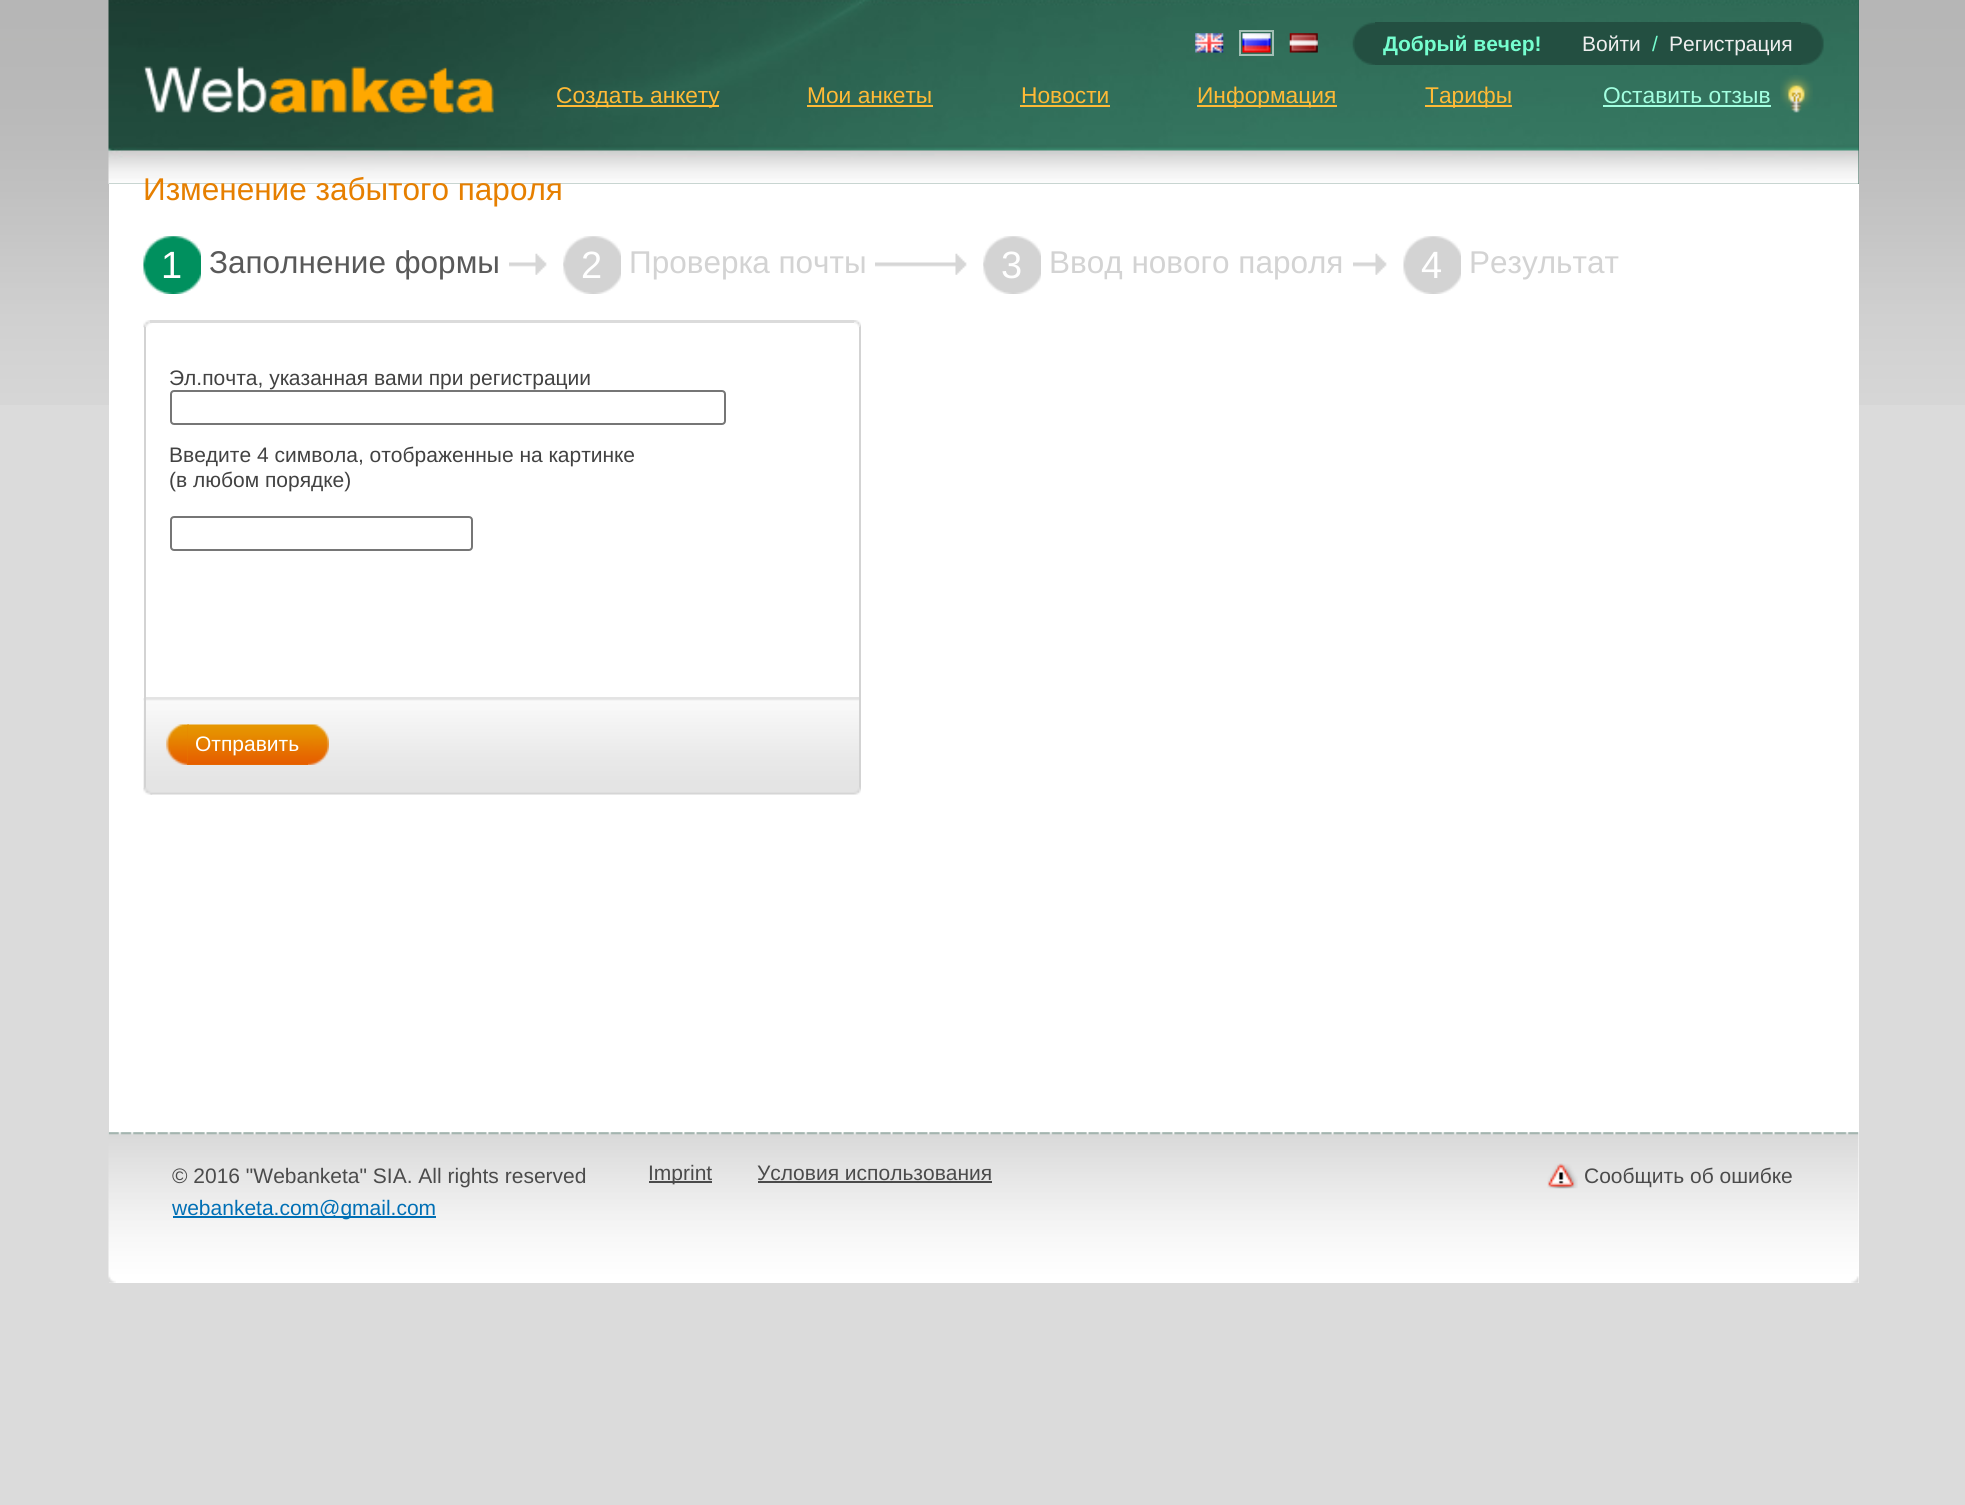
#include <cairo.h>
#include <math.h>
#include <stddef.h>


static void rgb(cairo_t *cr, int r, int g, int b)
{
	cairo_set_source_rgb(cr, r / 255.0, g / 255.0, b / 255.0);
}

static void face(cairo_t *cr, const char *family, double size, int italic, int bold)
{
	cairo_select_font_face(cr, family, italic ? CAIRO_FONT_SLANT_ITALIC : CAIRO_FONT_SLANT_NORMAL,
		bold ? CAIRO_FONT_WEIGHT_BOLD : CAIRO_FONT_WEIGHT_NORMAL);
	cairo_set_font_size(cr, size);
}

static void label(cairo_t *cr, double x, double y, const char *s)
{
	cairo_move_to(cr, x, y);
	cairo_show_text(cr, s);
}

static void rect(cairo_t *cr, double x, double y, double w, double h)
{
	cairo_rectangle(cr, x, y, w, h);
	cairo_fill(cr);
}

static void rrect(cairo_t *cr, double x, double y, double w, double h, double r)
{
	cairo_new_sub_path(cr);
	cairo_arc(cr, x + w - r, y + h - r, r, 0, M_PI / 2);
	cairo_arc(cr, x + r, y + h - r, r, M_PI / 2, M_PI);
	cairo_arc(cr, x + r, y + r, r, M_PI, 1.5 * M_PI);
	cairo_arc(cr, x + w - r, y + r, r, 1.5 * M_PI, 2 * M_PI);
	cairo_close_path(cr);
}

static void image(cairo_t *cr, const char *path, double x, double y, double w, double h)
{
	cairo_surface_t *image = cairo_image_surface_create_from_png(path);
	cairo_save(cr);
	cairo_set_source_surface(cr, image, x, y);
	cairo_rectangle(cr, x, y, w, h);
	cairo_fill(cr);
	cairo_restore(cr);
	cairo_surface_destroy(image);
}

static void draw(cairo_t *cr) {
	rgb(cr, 219, 219, 219);
	cairo_paint(cr);
	image(cr, "image0.png", 0, 0, 1965, 405);
	rgb(cr, 255, 255, 255);
	rect(cr, 109, 184, 1750, 1099);
	rgb(cr, 41, 93, 76);
	rect(cr, 109, 0, 1750, 184);
	image(cr, "image1.png", 108, 0, 1751, 184);
	image(cr, "image2.png", 1195, 33, 29, 20);
	cairo_rectangle(cr, 1240, 31, 33, 24);
	rgb(cr, 163, 192, 182);
	cairo_stroke(cr);
	image(cr, "image3.png", 1242, 33, 29, 20);
	image(cr, "image4.png", 1289, 33, 29, 20);
	image(cr, "image5.png", 1352, 22, 23, 43);
	image(cr, "image6.png", 1801, 22, 23, 43);
	rgb(cr, 35, 79, 65);
	rect(cr, 1375, 22, 426, 43);
	face(cr, "Liberation Sans", 21, 0, 1);
	rgb(cr, 117, 254, 207);
	label(cr, 1383, 51, "Добрый вечер!");
	face(cr, "Liberation Sans", 21, 0, 0);
	rgb(cr, 238, 238, 238);
	label(cr, 1582, 51, "Войти");
	rgb(cr, 117, 254, 207);
	label(cr, 1652, 51, "/");
	rgb(cr, 238, 238, 238);
	label(cr, 1669, 51, "Регистрация");
	image(cr, "image7.png", 143, 66, 351, 48);
	rgb(cr, 255, 186, 54);
	rect(cr, 557, 105, 162, 2);
	face(cr, "Liberation Sans", 22.75, 0, 0);
	label(cr, 556, 103, "Создать анкету");
	label(cr, 807, 103, "Мои анкеты");
	rect(cr, 807, 105, 126, 2);
	label(cr, 1021, 103, "Новости");
	rect(cr, 1020, 105, 90, 2);
	rect(cr, 1197, 105, 140, 2);
	label(cr, 1197, 103, "Информация");
	rect(cr, 1425, 105, 87, 2);
	label(cr, 1425, 103, "Тарифы");
	image(cr, "image8.png", 1780, 75, 33, 38);
	rgb(cr, 162, 255, 224);
	label(cr, 1603, 103, "Оставить отзыв");
	rect(cr, 1603, 105, 168, 2);
	face(cr, "Liberation Sans", 31.5, 0, 0);
	rgb(cr, 230, 127, 0);
	label(cr, 143, 200, "Изменение забытого пароля");
	image(cr, "image9.png", 143, 253, 404, 22);
	rgb(cr, 255, 255, 255);
	rect(cr, 144, 262, 365, 5);
	image(cr, "image10.png", 143, 236, 58, 58);
	face(cr, "Liberation Sans", 38, 0, 0);
	label(cr, 161, 278, "1");
	face(cr, "Liberation Sans", 31.5, 0, 0);
	rgb(cr, 89, 89, 89);
	label(cr, 209, 273, "Заполнение формы");
	image(cr, "image9.png", 563, 253, 404, 22);
	rgb(cr, 255, 255, 255);
	rect(cr, 564, 262, 311, 5);
	image(cr, "image11.png", 563, 236, 58, 58);
	face(cr, "Liberation Sans", 38, 0, 0);
	label(cr, 581, 278, "2");
	face(cr, "Liberation Sans", 31.5, 0, 0);
	rgb(cr, 211, 211, 211);
	label(cr, 629, 273, "Проверка почты");
	image(cr, "image9.png", 983, 253, 404, 22);
	rgb(cr, 255, 255, 255);
	rect(cr, 984, 262, 369, 5);
	image(cr, "image11.png", 983, 236, 58, 58);
	face(cr, "Liberation Sans", 38, 0, 0);
	label(cr, 1001, 278, "3");
	face(cr, "Liberation Sans", 31.5, 0, 0);
	rgb(cr, 211, 211, 211);
	label(cr, 1049, 273, "Ввод нового пароля");
	image(cr, "image12.png", 1403, 236, 58, 58);
	face(cr, "Liberation Sans", 38, 0, 0);
	rgb(cr, 255, 255, 255);
	label(cr, 1421, 278, "4");
	face(cr, "Liberation Sans", 31.5, 0, 0);
	rgb(cr, 211, 211, 211);
	label(cr, 1469, 273, "Результат");
	image(cr, "image13.png", 143, 320, 10, 8);
	rgb(cr, 219, 219, 219);
	rect(cr, 150, 320, 704, 3);
	image(cr, "image14.png", 854, 320, 7, 8);
	rgb(cr, 211, 211, 211);
	rect(cr, 859, 327, 2, 461);
	rect(cr, 144, 327, 2, 370);
	face(cr, "Liberation Sans", 21, 0, 0);
	rgb(cr, 66, 66, 66);
	label(cr, 169, 385, "Эл.почта, указанная вами при регистрации");
	rrect(cr, 171, 391, 554, 33, 3);
	rgb(cr, 118, 118, 118);
	cairo_stroke(cr);
	rgb(cr, 66, 66, 66);
	label(cr, 169, 462, "Введите 4 символа, отображенные на картинке");
	label(cr, 169, 487, "(в любом порядке)");
	rrect(cr, 171, 517, 301, 33, 3);
	rgb(cr, 118, 118, 118);
	cairo_stroke(cr);
	rgb(cr, 228, 228, 228);
	rect(cr, 146, 697, 713, 91);
	image(cr, "image15.png", 143, 698, 716, 90);
	rgb(cr, 211, 211, 211);
	rect(cr, 144, 697, 2, 91);
	image(cr, "image16.png", 166, 724, 23, 41);
	image(cr, "image17.png", 308, 724, 21, 41);
	rgb(cr, 230, 130, 0);
	rect(cr, 187, 725, 121, 40);
	image(cr, "image18.png", 187, 724, 121, 41);
	rgb(cr, 255, 255, 255);
	label(cr, 195, 751, "Отправить");
	image(cr, "image19.png", 143, 787, 10, 8);
	image(cr, "image20.png", 150, 788, 704, 7);
	image(cr, "image21.png", 854, 787, 7, 8);
	image(cr, "image22.png", 108, 1132, 1751, 142);
	rgb(cr, 75, 75, 75);
	label(cr, 172, 1183, "© 2016 \"Webanketa\" SIA. All rights reserved");
	rgb(cr, 0, 111, 181);
	rect(cr, 173, 1216, 263, 2);
	label(cr, 172, 1215, "webanketa.com@gmail.com");
	rgb(cr, 75, 75, 75);
	rect(cr, 649, 1181, 63, 2);
	label(cr, 648, 1180, "Imprint");
	label(cr, 757, 1180, "Условия использования");
	rect(cr, 758, 1181, 234, 2);
	image(cr, "image23.png", 1547, 1163, 31, 26);
	label(cr, 1584, 1183, "Сообщить об ошибке");
	image(cr, "image24.png", 108, 1274, 8, 9);
	image(cr, "image25.png", 1851, 1276, 8, 7);
}

int main(void) {
	cairo_surface_t *surface = cairo_image_surface_create(CAIRO_FORMAT_RGB24, 1965, 1505);
	cairo_t *cr = cairo_create(surface);
	cairo_font_options_t *options = cairo_font_options_create();
	cairo_font_options_set_hint_metrics(options, CAIRO_HINT_METRICS_OFF);
	cairo_font_options_set_hint_style(options, CAIRO_HINT_STYLE_NONE);
	cairo_set_font_options(cr, options);
	cairo_set_miter_limit(cr, 4);
	draw(cr);
	cairo_surface_write_to_png(surface, "render.png");
	cairo_font_options_destroy(options);
	cairo_destroy(cr);
	cairo_surface_destroy(surface);
	return 0;
}
